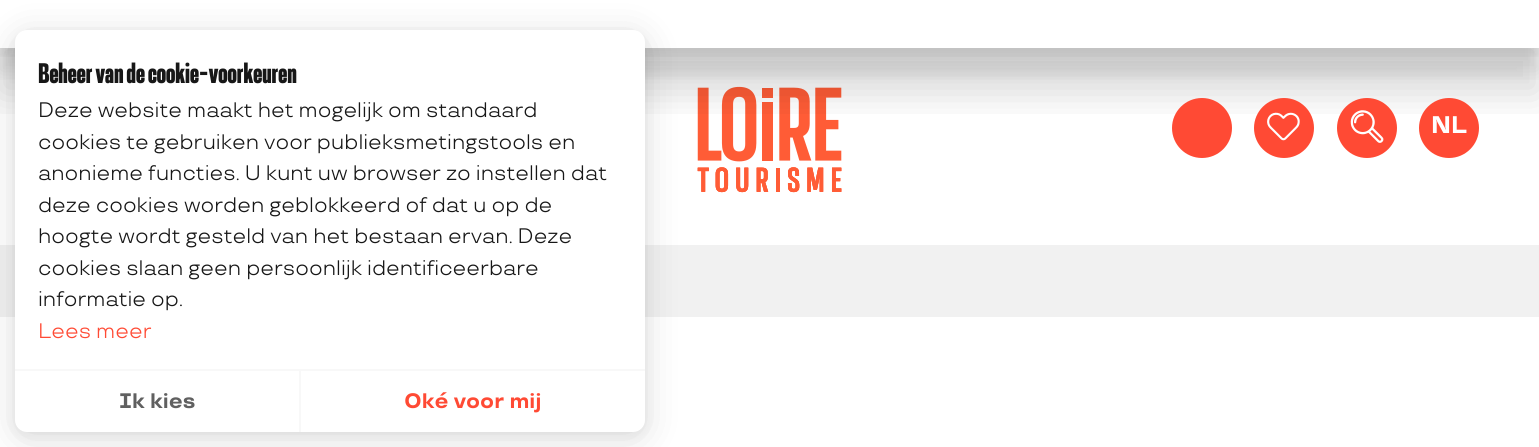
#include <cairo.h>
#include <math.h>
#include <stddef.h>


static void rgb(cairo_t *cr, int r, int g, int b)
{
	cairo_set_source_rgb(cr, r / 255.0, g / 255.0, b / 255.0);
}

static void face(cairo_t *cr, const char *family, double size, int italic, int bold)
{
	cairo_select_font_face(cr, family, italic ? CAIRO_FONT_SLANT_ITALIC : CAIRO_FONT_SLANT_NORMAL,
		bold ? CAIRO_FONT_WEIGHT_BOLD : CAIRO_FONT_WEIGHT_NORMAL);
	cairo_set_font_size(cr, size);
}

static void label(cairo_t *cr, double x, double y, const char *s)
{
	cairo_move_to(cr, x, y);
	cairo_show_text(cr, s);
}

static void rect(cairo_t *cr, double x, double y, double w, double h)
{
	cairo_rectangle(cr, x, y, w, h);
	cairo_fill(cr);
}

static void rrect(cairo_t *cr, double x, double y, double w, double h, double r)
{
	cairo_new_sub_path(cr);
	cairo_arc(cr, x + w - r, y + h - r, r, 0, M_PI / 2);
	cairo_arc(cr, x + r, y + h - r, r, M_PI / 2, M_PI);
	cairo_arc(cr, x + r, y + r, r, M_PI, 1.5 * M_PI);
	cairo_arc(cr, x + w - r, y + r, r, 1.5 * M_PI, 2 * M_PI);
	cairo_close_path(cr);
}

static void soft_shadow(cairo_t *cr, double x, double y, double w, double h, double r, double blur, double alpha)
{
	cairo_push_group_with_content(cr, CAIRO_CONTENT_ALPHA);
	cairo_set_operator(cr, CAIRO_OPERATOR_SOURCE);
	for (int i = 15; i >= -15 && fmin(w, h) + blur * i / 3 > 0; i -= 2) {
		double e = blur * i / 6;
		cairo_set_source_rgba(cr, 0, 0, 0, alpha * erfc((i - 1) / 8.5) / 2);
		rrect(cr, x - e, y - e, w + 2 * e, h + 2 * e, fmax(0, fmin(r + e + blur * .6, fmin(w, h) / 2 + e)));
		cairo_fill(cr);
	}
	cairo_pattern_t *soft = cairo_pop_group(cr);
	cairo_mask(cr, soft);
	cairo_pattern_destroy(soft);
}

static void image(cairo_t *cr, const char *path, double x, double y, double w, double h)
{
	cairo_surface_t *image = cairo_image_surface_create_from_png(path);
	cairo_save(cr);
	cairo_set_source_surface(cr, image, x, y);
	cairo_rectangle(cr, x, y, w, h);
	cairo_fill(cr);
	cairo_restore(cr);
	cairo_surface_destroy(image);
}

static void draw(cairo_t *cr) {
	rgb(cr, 255, 255, 255);
	cairo_paint(cr);
	rgb(cr, 241, 241, 241);
	rect(cr, 0, 245, 1539, 72);
	rgb(cr, 23, 23, 23);
	soft_shadow(cr, 15, 33, 630, 402, 12, 4.5, 0.05);
	image(cr, "image0.png", 697, 86, 145, 107);
	soft_shadow(cr, 15, 36, 630, 402, 12, 18, 0.15);
	cairo_save(cr);
	cairo_rectangle(cr, 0, 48, 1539, 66);
	cairo_clip(cr);
	rgb(cr, 0, 0, 0);
	soft_shadow(cr, 0, 45, 1539, 48, 0, 19, 0.15);
	cairo_restore(cr);
	cairo_save(cr);
	cairo_rectangle(cr, 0, 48, 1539, 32);
	cairo_clip(cr);
	rgb(cr, 0, 0, 0);
	soft_shadow(cr, 0, 23, 1539, 48, 0, 9.5, 0.11);
	cairo_restore(cr);
	cairo_save(cr);
	cairo_rectangle(cr, 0, 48, 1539, 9);
	cairo_clip(cr);
	rgb(cr, 0, 0, 0);
	soft_shadow(cr, 0, 8, 1539, 48, 0, 3, 0.06);
	cairo_restore(cr);
	rgb(cr, 255, 255, 255);
	rrect(cr, 15, 30, 630, 402, 12);
	cairo_fill(cr);
	face(cr, "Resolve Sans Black", 30, 0, 0);
	rgb(cr, 23, 23, 23);
	label(cr, 38, 83, "Beheer van de cookie-voorkeuren");
	face(cr, "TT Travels", 21, 0, 0);
	label(cr, 38, 117, "Deze website maakt het mogelijk om standaard");
	label(cr, 38, 149, "cookies te gebruiken voor publieksmetingstools en");
	label(cr, 38, 180, "anonieme functies. U kunt uw browser zo instellen dat");
	label(cr, 38, 212, "deze cookies worden geblokkeerd of dat u op de");
	label(cr, 38, 243, "hoogte wordt gesteld van het bestaan ervan. Deze");
	label(cr, 38, 275, "cookies slaan geen persoonlijk identificeerbare");
	label(cr, 38, 306, "informatie op.");
	rgb(cr, 255, 74, 52);
	label(cr, 38, 338, "Lees meer");
	rgb(cr, 248, 248, 248);
	rect(cr, 15, 369, 630, 2);
	rect(cr, 299, 371, 2, 61);
	face(cr, "TT Travels", 21, 0, 1);
	rgb(cr, 96, 96, 96);
	label(cr, 119, 408, "Ik kies");
	rgb(cr, 255, 74, 52);
	label(cr, 404, 408, "Oké voor mij");
	cairo_new_path(cr);
	cairo_arc(cr, 1202, 128, 30, 0, 2 * M_PI);
	cairo_fill(cr);
	cairo_arc(cr, 1284, 128, 30, 0, 2 * M_PI);
	cairo_fill(cr);
	image(cr, "image1.png", 1267, 112, 33, 29);
	cairo_arc(cr, 1367, 128, 30, 0, 2 * M_PI);
	cairo_fill(cr);
	image(cr, "image2.png", 1350, 110, 34, 33);
	cairo_arc(cr, 1449, 128, 30, 0, 2 * M_PI);
	cairo_fill(cr);
	face(cr, "TT Travels", 24, 0, 1);
	rgb(cr, 255, 255, 255);
	label(cr, 1431, 133, "NL");
}

int main(void) {
	cairo_surface_t *surface = cairo_image_surface_create(CAIRO_FORMAT_RGB24, 1539, 447);
	cairo_t *cr = cairo_create(surface);
	cairo_font_options_t *options = cairo_font_options_create();
	cairo_font_options_set_hint_metrics(options, CAIRO_HINT_METRICS_OFF);
	cairo_font_options_set_hint_style(options, CAIRO_HINT_STYLE_NONE);
	cairo_set_font_options(cr, options);
	cairo_set_miter_limit(cr, 4);
	draw(cr);
	cairo_surface_write_to_png(surface, "render.png");
	cairo_font_options_destroy(options);
	cairo_destroy(cr);
	cairo_surface_destroy(surface);
	return 0;
}
